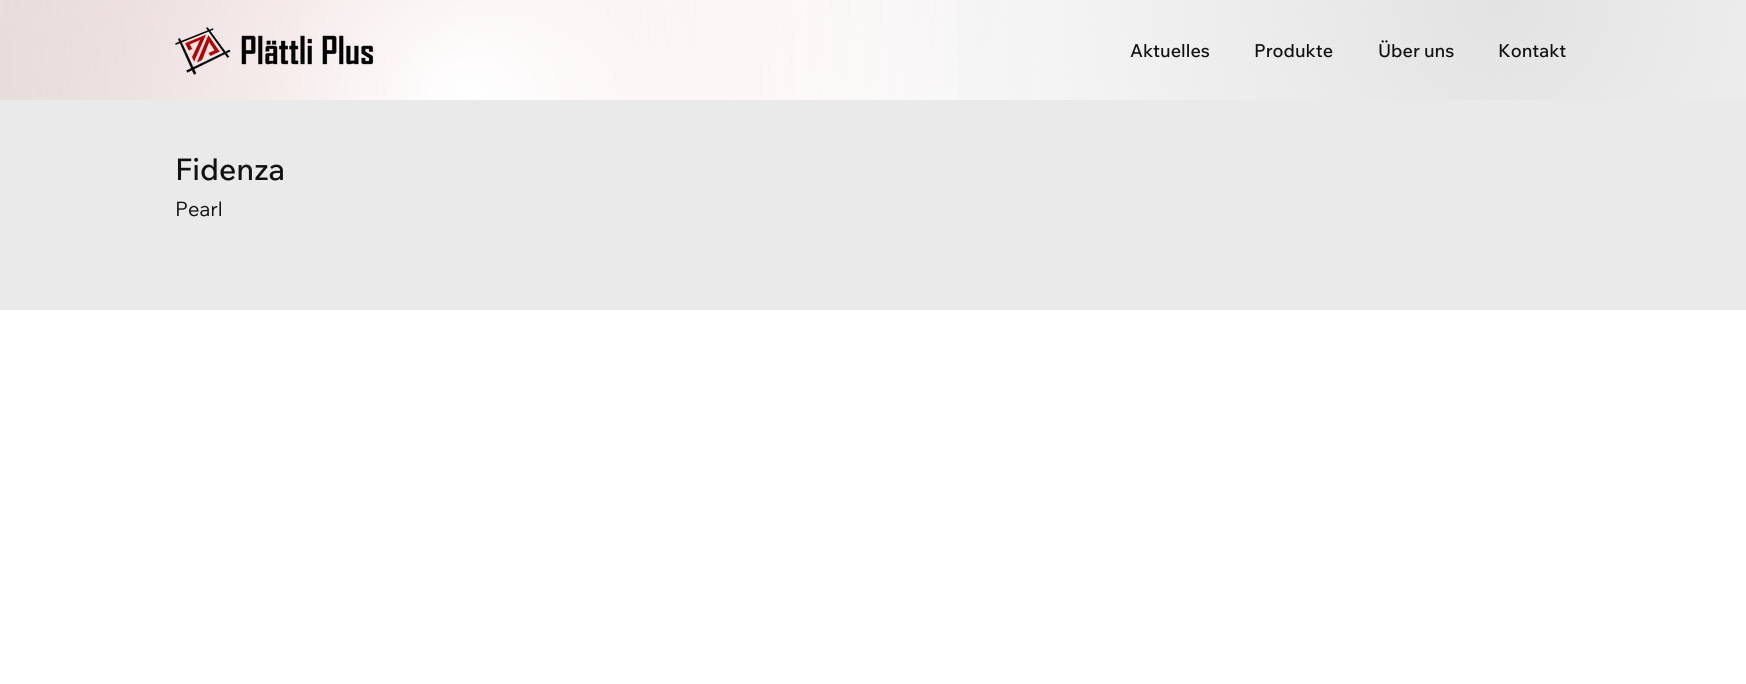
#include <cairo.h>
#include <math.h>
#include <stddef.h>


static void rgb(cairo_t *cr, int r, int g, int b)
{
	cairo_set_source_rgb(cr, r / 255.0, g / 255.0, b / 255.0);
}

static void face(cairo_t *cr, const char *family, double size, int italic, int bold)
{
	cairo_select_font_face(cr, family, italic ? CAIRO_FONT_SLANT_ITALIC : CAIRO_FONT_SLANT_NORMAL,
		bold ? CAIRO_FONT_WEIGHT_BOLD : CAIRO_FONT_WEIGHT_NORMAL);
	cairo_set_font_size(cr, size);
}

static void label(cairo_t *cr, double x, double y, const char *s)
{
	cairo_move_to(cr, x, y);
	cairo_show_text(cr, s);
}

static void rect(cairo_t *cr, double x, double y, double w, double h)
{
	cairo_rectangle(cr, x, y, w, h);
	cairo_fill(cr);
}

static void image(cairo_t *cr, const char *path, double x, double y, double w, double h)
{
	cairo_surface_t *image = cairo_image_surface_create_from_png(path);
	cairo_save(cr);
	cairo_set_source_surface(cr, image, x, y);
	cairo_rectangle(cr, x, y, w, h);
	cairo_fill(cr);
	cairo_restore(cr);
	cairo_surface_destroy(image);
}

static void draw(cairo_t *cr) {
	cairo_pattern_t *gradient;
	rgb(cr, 255, 255, 255);
	cairo_paint(cr);
	gradient = cairo_pattern_create_radial(0, 100, 0, 0, 100, 1749);
	cairo_pattern_add_color_stop_rgba(gradient, 0, 0.89, 0.89, 0.89, 1);
	cairo_pattern_add_color_stop_rgba(gradient, 0.5, 1, 1, 1, 1);
	cairo_set_source(cr, gradient);
	cairo_pattern_destroy(gradient);
	rect(cr, 0, 0, 795, 100);
	gradient = cairo_pattern_create_radial(423, 0, 0, 423, 0, 1327);
	cairo_pattern_add_color_stop_rgba(gradient, 0, 0.702, 0, 0, 0.25);
	cairo_pattern_add_color_stop_rgba(gradient, 0.5, 0.702, 0, 0, 0);
	cairo_set_source(cr, gradient);
	cairo_pattern_destroy(gradient);
	rect(cr, 0, 0, 1030, 100);
	gradient = cairo_pattern_create_radial(1257, 100, 0, 1257, 100, 1261);
	cairo_pattern_add_color_stop_rgba(gradient, 0, 1, 1, 1, 1);
	cairo_pattern_add_color_stop_rgba(gradient, 0.79, 1, 1, 1, 0);
	cairo_set_source(cr, gradient);
	cairo_pattern_destroy(gradient);
	rect(cr, 300, 0, 730, 100);
	gradient = cairo_pattern_create_radial(1501, 0, 0, 1501, 0, 1505);
	cairo_pattern_add_color_stop_rgba(gradient, 0, 0.89, 0.89, 0.89, 1);
	cairo_pattern_add_color_stop_rgba(gradient, 0.5, 0.89, 0.89, 0.89, 0);
	cairo_set_source(cr, gradient);
	cairo_pattern_destroy(gradient);
	rect(cr, 808, 0, 938, 100);
	gradient = cairo_pattern_create_radial(470, 100, 0, 470, 100, 1280);
	cairo_pattern_add_color_stop_rgba(gradient, 0, 1, 1, 1, 1);
	cairo_pattern_add_color_stop_rgba(gradient, 0.5, 1, 1, 1, 0);
	cairo_set_source(cr, gradient);
	cairo_pattern_destroy(gradient);
	rect(cr, 0, 0, 957, 100);
	image(cr, "image0.png", 175, 27, 199, 48);
	face(cr, "Wix Madefor Text Medium", 18, 0, 0);
	rgb(cr, 17, 17, 17);
	label(cr, 1130, 57, "Aktuelles");
	label(cr, 1254, 57, "Produkte");
	label(cr, 1378, 57, "Über uns");
	label(cr, 1498, 57, "Kontakt");
	rgb(cr, 234, 234, 234);
	rect(cr, 0, 100, 1746, 210);
	face(cr, "Wix Madefor Text Medium", 30, 0, 0);
	rgb(cr, 17, 17, 17);
	label(cr, 175, 180, "Fidenza");
	face(cr, "Wix Madefor Text", 20, 0, 0);
	label(cr, 175, 216, "Pearl");
}

int main(void) {
	cairo_surface_t *surface = cairo_image_surface_create(CAIRO_FORMAT_RGB24, 1746, 684);
	cairo_t *cr = cairo_create(surface);
	cairo_font_options_t *options = cairo_font_options_create();
	cairo_font_options_set_hint_metrics(options, CAIRO_HINT_METRICS_OFF);
	cairo_font_options_set_hint_style(options, CAIRO_HINT_STYLE_NONE);
	cairo_set_font_options(cr, options);
	cairo_set_miter_limit(cr, 4);
	draw(cr);
	cairo_surface_write_to_png(surface, "render.png");
	cairo_font_options_destroy(options);
	cairo_destroy(cr);
	cairo_surface_destroy(surface);
	return 0;
}
